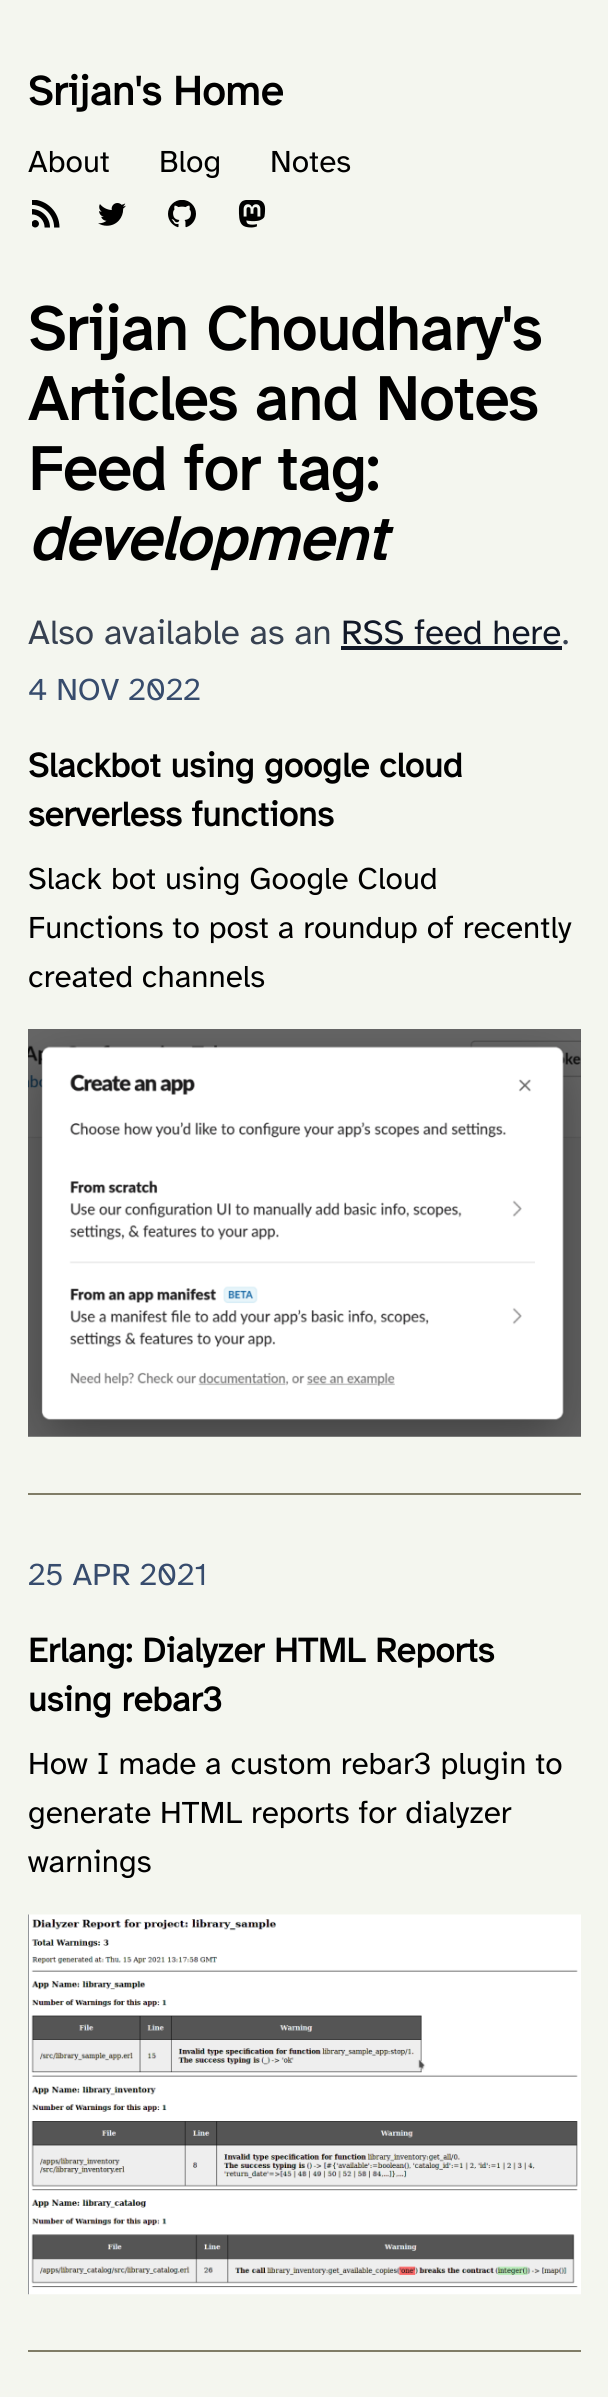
#include <cairo.h>
#include <math.h>
#include <stddef.h>


static void rgb(cairo_t *cr, int r, int g, int b)
{
	cairo_set_source_rgb(cr, r / 255.0, g / 255.0, b / 255.0);
}

static void face(cairo_t *cr, const char *family, double size, int italic, int bold)
{
	cairo_select_font_face(cr, family, italic ? CAIRO_FONT_SLANT_ITALIC : CAIRO_FONT_SLANT_NORMAL,
		bold ? CAIRO_FONT_WEIGHT_BOLD : CAIRO_FONT_WEIGHT_NORMAL);
	cairo_set_font_size(cr, size);
}

static void label(cairo_t *cr, double x, double y, const char *s)
{
	cairo_move_to(cr, x, y);
	cairo_show_text(cr, s);
}

static void rect(cairo_t *cr, double x, double y, double w, double h)
{
	cairo_rectangle(cr, x, y, w, h);
	cairo_fill(cr);
}

static void image(cairo_t *cr, const char *path, double x, double y, double w, double h)
{
	cairo_surface_t *image = cairo_image_surface_create_from_png(path);
	cairo_save(cr);
	cairo_set_source_surface(cr, image, x, y);
	cairo_rectangle(cr, x, y, w, h);
	cairo_fill(cr);
	cairo_restore(cr);
	cairo_surface_destroy(image);
}

static void draw(cairo_t *cr) {
	rgb(cr, 244, 246, 239);
	cairo_paint(cr);
	face(cr, "Atkinson Hyperlegible", 42, 0, 1);
	rgb(cr, 0, 0, 0);
	label(cr, 28, 105, "Srijan's Home");
	face(cr, "Atkinson Hyperlegible", 31.5, 0, 0);
	label(cr, 28, 172, "About");
	label(cr, 159, 172, "Blog");
	label(cr, 270, 172, "Notes");
	image(cr, "image0.png", 32, 200, 28, 28);
	image(cr, "image1.png", 98, 203, 28, 23);
	image(cr, "image2.png", 168, 200, 28, 28);
	image(cr, "image3.png", 238, 200, 28, 28);
	face(cr, "Atkinson Hyperlegible", 63, 0, 1);
	label(cr, 28, 350, "Srijan Choudhary's");
	label(cr, 28, 420, "Articles and Notes");
	label(cr, 28, 490, "Feed for tag:");
	face(cr, "Atkinson Hyperlegible", 63, 1, 1);
	label(cr, 28, 560, "development");
	face(cr, "Atkinson Hyperlegible", 35, 0, 0);
	rgb(cr, 55, 65, 81);
	label(cr, 28, 644, "Also available as an");
	rgb(cr, 17, 24, 39);
	label(cr, 341, 644, "RSS feed here");
	rect(cr, 341, 646, 221, 4);
	rgb(cr, 55, 65, 81);
	label(cr, 562, 644, ".");
	rgb(cr, 128, 125, 103);
	rect(cr, 28, 1493, 553, 2);
	face(cr, "Atkinson Hyperlegible", 31.5, 0, 0);
	rgb(cr, 55, 76, 109);
	label(cr, 28, 700, "4 NOV 2022");
	face(cr, "Atkinson Hyperlegible", 35, 0, 1);
	rgb(cr, 0, 0, 0);
	label(cr, 28, 777, "Slackbot using google cloud");
	label(cr, 28, 826, "serverless functions");
	face(cr, "Atkinson Hyperlegible", 31.5, 0, 0);
	label(cr, 28, 889, "Slack bot using Google Cloud");
	label(cr, 28, 938, "Functions to post a roundup of recently");
	label(cr, 28, 987, "created channels");
	image(cr, "image4.png", 28, 1029, 553, 408);
	rgb(cr, 128, 125, 103);
	rect(cr, 28, 2350, 553, 2);
	rgb(cr, 55, 76, 109);
	label(cr, 28, 1585, "25 APR 2021");
	face(cr, "Atkinson Hyperlegible", 35, 0, 1);
	rgb(cr, 0, 0, 0);
	label(cr, 28, 1662, "Erlang: Dialyzer HTML Reports");
	label(cr, 28, 1711, "using rebar3");
	face(cr, "Atkinson Hyperlegible", 31.5, 0, 0);
	label(cr, 28, 1774, "How I made a custom rebar3 plugin to");
	label(cr, 28, 1823, "generate HTML reports for dialyzer");
	label(cr, 28, 1872, "warnings");
	image(cr, "image5.png", 28, 1914, 553, 381);
}

int main(void) {
	cairo_surface_t *surface = cairo_image_surface_create(CAIRO_FORMAT_RGB24, 608, 2397);
	cairo_t *cr = cairo_create(surface);
	cairo_font_options_t *options = cairo_font_options_create();
	cairo_font_options_set_hint_metrics(options, CAIRO_HINT_METRICS_OFF);
	cairo_font_options_set_hint_style(options, CAIRO_HINT_STYLE_NONE);
	cairo_set_font_options(cr, options);
	cairo_set_miter_limit(cr, 4);
	draw(cr);
	cairo_surface_write_to_png(surface, "render.png");
	cairo_font_options_destroy(options);
	cairo_destroy(cr);
	cairo_surface_destroy(surface);
	return 0;
}
